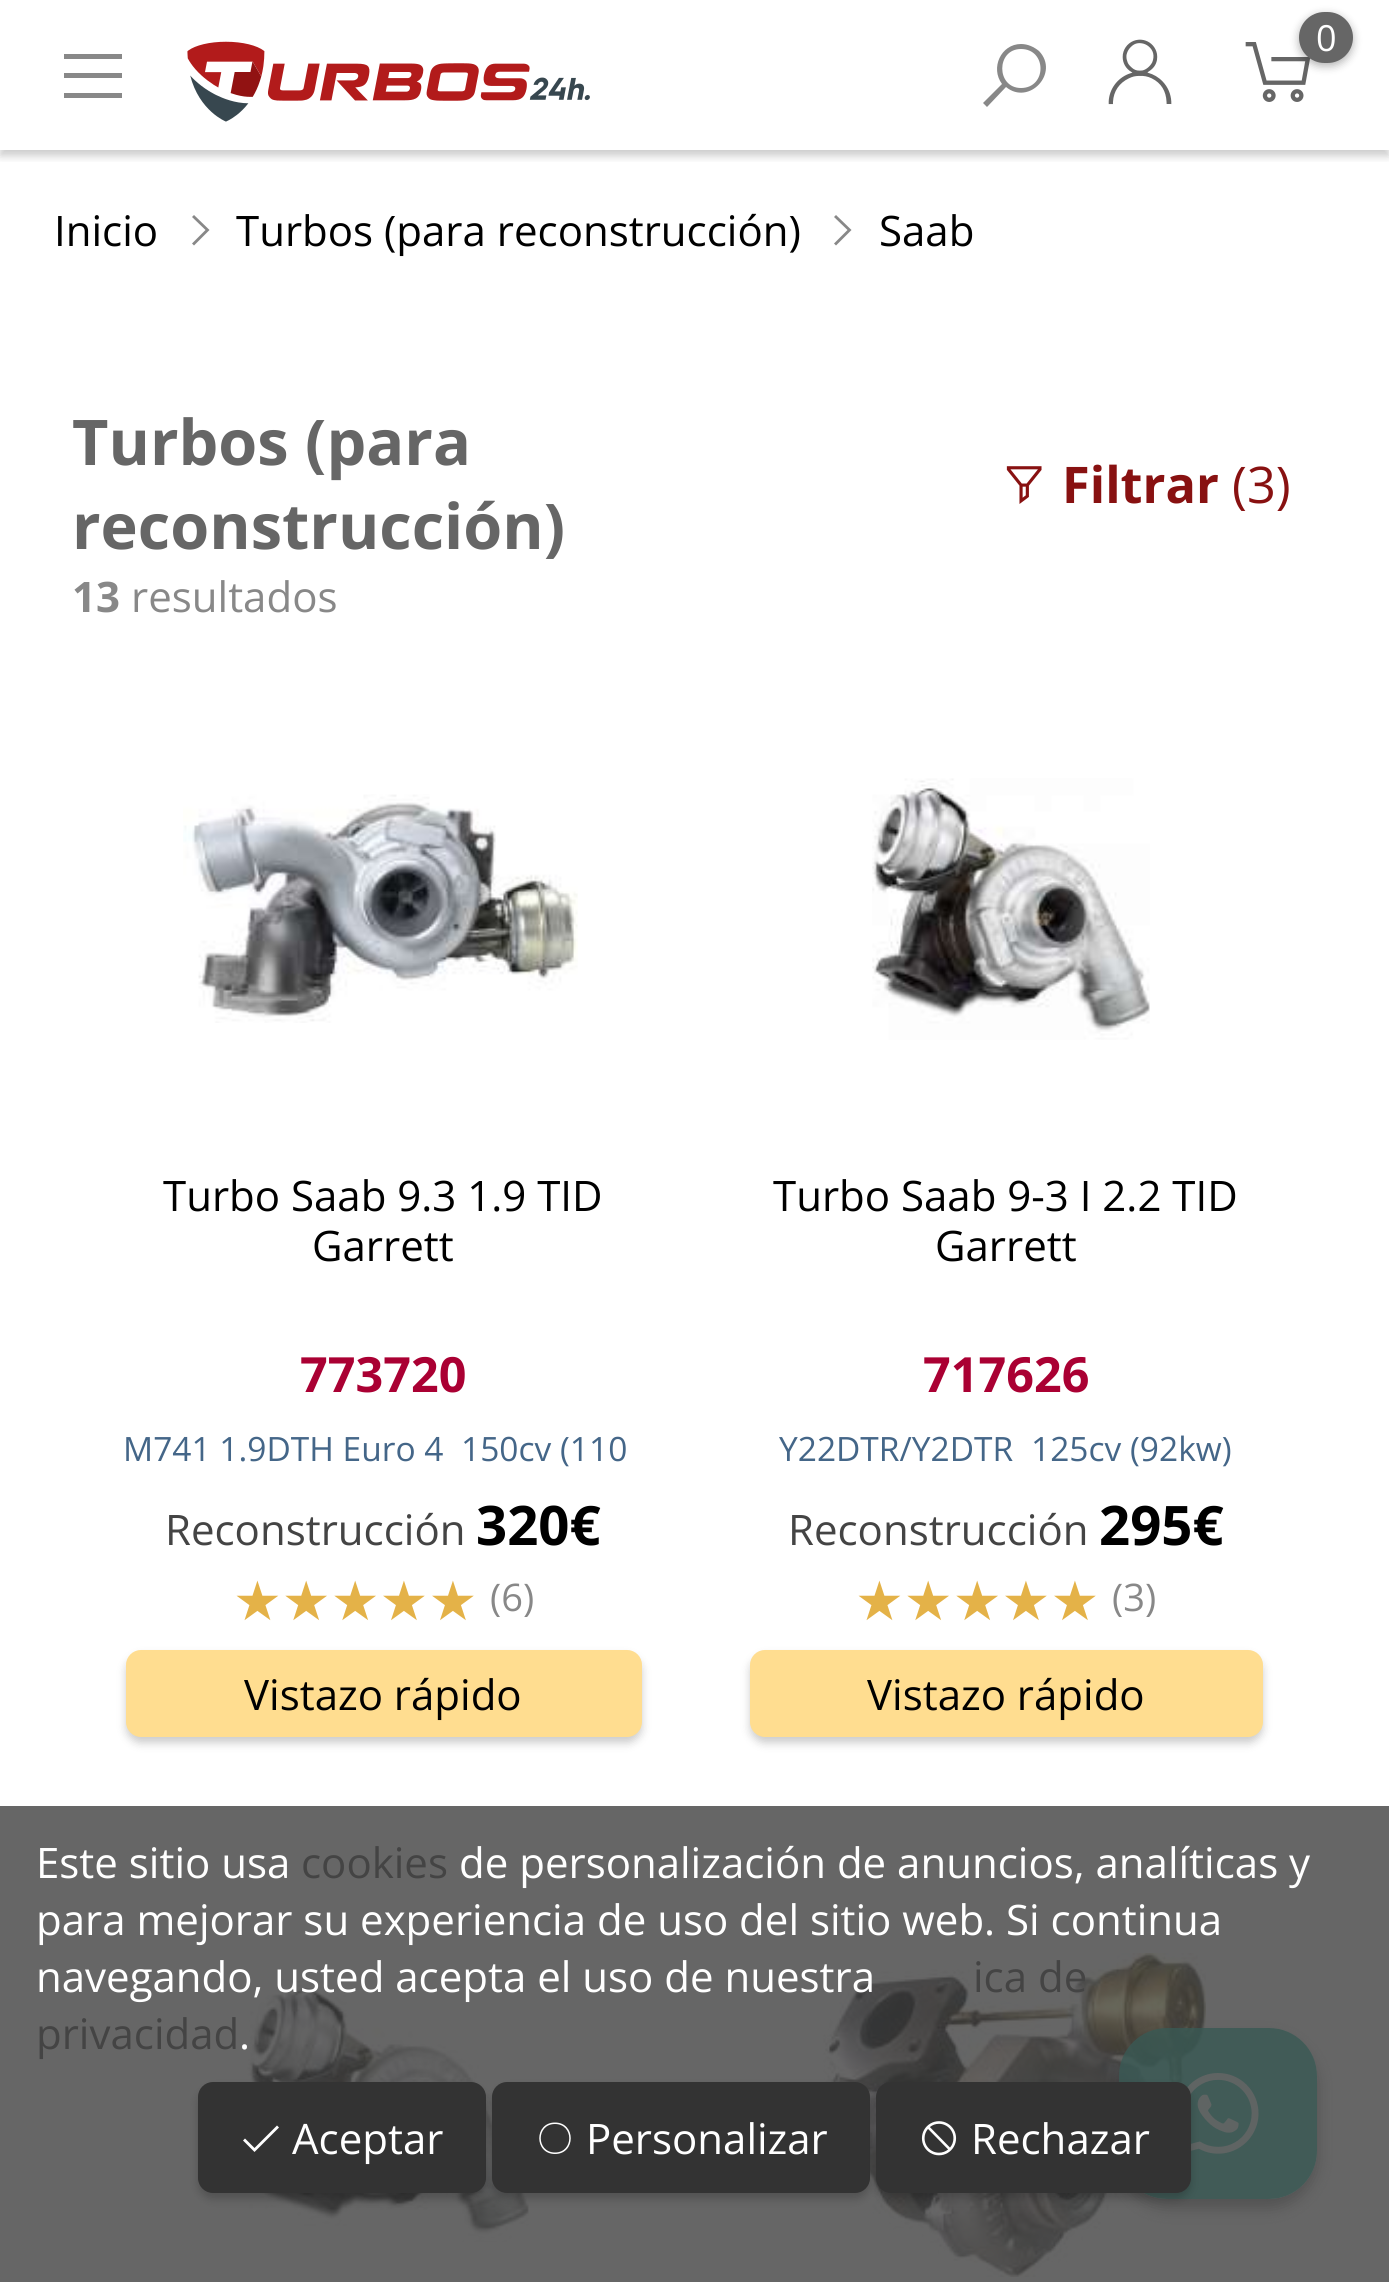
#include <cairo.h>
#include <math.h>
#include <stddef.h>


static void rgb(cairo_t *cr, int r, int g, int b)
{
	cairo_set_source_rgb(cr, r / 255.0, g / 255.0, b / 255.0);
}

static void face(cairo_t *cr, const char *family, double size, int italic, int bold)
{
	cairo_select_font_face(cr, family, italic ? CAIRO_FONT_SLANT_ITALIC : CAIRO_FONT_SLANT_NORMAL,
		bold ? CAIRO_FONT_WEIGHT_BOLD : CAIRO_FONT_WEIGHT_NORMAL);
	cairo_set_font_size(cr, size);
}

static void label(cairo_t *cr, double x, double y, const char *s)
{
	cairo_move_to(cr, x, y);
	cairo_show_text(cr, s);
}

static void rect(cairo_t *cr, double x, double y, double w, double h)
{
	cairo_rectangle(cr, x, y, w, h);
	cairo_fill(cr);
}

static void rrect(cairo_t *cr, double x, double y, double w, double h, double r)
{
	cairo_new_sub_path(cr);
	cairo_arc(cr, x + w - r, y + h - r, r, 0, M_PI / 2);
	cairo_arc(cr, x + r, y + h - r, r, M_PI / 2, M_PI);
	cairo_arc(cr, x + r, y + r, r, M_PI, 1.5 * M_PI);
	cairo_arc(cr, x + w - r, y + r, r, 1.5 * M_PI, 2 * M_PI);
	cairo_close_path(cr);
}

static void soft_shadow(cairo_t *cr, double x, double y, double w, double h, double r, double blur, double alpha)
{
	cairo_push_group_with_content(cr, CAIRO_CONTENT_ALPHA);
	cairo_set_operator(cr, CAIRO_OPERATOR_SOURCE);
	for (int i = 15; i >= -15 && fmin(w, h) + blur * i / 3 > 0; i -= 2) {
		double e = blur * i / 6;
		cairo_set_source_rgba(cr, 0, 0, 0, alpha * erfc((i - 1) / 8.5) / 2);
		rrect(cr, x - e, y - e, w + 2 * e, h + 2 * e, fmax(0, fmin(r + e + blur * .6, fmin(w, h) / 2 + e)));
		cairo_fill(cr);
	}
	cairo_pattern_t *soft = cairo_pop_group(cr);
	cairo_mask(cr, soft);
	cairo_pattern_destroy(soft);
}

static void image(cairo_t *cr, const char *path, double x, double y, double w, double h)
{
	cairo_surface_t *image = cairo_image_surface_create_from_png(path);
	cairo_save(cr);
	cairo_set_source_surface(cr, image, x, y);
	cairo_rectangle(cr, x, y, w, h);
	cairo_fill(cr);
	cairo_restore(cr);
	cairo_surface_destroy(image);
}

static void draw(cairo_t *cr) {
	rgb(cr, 255, 255, 255);
	cairo_paint(cr);
	rgb(cr, 102, 102, 102);
	rect(cr, 0, 1806, 1389, 476);
	cairo_save(cr);
	cairo_rectangle(cr, 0, 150, 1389, 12);
	cairo_clip(cr);
	rgb(cr, 0, 0, 0);
	soft_shadow(cr, 0, 6, 1389, 150, 0, 4.5, 0.2);
	cairo_restore(cr);
	rgb(cr, 136, 136, 136);
	cairo_new_path(cr);
	cairo_move_to(cr, 64, 54);
	cairo_line_to(cr, 64, 59);
	cairo_line_to(cr, 122, 59);
	cairo_line_to(cr, 122, 54);
	cairo_close_path(cr);
	cairo_move_to(cr, 64, 73);
	cairo_line_to(cr, 64, 78);
	cairo_line_to(cr, 122, 78);
	cairo_line_to(cr, 122, 73);
	cairo_close_path(cr);
	cairo_move_to(cr, 64, 93);
	cairo_line_to(cr, 64, 98);
	cairo_line_to(cr, 122, 98);
	cairo_line_to(cr, 122, 93);
	cairo_close_path(cr);
	cairo_fill(cr);
	image(cr, "image0.png", 187, 41, 403, 81);
	cairo_new_path(cr);
	cairo_move_to(cr, 1021, 44);
	cairo_curve_to(cr, 1001, 44, 990, 68, 1002, 84);
	cairo_line_to(cr, 983, 103);
	cairo_line_to(cr, 987, 107);
	cairo_line_to(cr, 1006, 87);
	cairo_curve_to(cr, 1029, 106, 1060, 73, 1039, 51);
	cairo_curve_to(cr, 1034, 47, 1028, 44, 1021, 44);
	cairo_close_path(cr);
	cairo_move_to(cr, 1021, 49);
	cairo_curve_to(cr, 1047, 49, 1047, 88, 1021, 88);
	cairo_curve_to(cr, 996, 88, 996, 49, 1021, 49);
	cairo_close_path(cr);
	cairo_fill(cr);
	image(cr, "image1.png", 1108, 39, 64, 66);
	image(cr, "image2.png", 1245, 42, 66, 60);
	rgb(cr, 0, 0, 0);
	soft_shadow(cr, 1299, 15, 54, 51, 25.5, 4.5, 0.3);
	rgb(cr, 102, 102, 102);
	rrect(cr, 1299, 12, 54, 51, 25.5);
	cairo_fill(cr);
	face(cr, "Open Sans", 36, 0, 0);
	rgb(cr, 255, 255, 255);
	label(cr, 1316, 51, "0");
	face(cr, "Open Sans", 42, 0, 0);
	rgb(cr, 0, 0, 0);
	label(cr, 54, 246, "Inicio");
	rgb(cr, 136, 136, 136);
	cairo_new_path(cr);
	cairo_move_to(cr, 194, 215);
	cairo_line_to(cr, 192, 217);
	cairo_line_to(cr, 205.5, 230);
	cairo_line_to(cr, 192, 243.5);
	cairo_line_to(cr, 194, 245.5);
	cairo_line_to(cr, 209.5, 230);
	cairo_close_path(cr);
	cairo_fill(cr);
	rgb(cr, 0, 0, 0);
	label(cr, 236, 246, "Turbos (para reconstrucción)");
	rgb(cr, 136, 136, 136);
	cairo_new_path(cr);
	cairo_move_to(cr, 836, 215);
	cairo_line_to(cr, 834, 217);
	cairo_line_to(cr, 847.5, 230);
	cairo_line_to(cr, 834, 243.5);
	cairo_line_to(cr, 836, 245.5);
	cairo_line_to(cr, 851.5, 230);
	cairo_close_path(cr);
	cairo_fill(cr);
	rgb(cr, 0, 0, 0);
	label(cr, 879, 246, "Saab");
	face(cr, "Open Sans", 63, 0, 1);
	rgb(cr, 102, 102, 102);
	label(cr, 72, 465, "Turbos (para");
	label(cr, 72, 549, "reconstrucción)");
	image(cr, "image3.png", 1006, 466, 36, 38);
	face(cr, "Open Sans", 50.5, 0, 1);
	rgb(cr, 136, 17, 17);
	label(cr, 1062, 503, "Filtrar");
	face(cr, "Open Sans", 50.5, 0, 0);
	label(cr, 1232, 503, "(3)");
	face(cr, "Open Sans", 42, 0, 1);
	rgb(cr, 136, 136, 136);
	label(cr, 72, 612, "13");
	face(cr, "Open Sans", 42, 0, 0);
	label(cr, 131, 612, "resultados");
	image(cr, "image4.png", 183, 794, 395, 229);
	rgb(cr, 0, 0, 0);
	label(cr, 163, 1211, "Turbo Saab 9.3 1.9 TID");
	label(cr, 312, 1261, "Garrett");
	face(cr, "Open Sans", 48.5, 0, 1);
	rgb(cr, 170, 0, 51);
	label(cr, 300, 1392, "773720");
	face(cr, "Open Sans", 33.5, 0, 0);
	rgb(cr, 68, 102, 136);
	label(cr, 123, 1461, "M741 1.9DTH Euro 4");
	label(cr, 461, 1461, "150cv (110");
	face(cr, "Open Sans", 42, 0, 0);
	rgb(cr, 68, 68, 68);
	label(cr, 165, 1545, "Reconstrucción");
	face(cr, "Open Sans", 54.5, 0, 1);
	rgb(cr, 0, 0, 0);
	label(cr, 476, 1545, "320€");
	face(cr, "DejaVu Sans", 54.5, 0, 0);
	rgb(cr, 228, 178, 72);
	label(cr, 233, 1620, "★★★★★");
	face(cr, "Open Sans", 38, 0, 0);
	rgb(cr, 136, 136, 136);
	label(cr, 490, 1611, "(6)");
	rgb(cr, 0, 0, 0);
	soft_shadow(cr, 126, 1656, 516, 87, 15, 4.5, 0.2);
	rgb(cr, 255, 221, 144);
	rrect(cr, 126, 1650, 516, 87, 15);
	cairo_fill(cr);
	face(cr, "Open Sans", 42, 0, 0);
	rgb(cr, 0, 0, 0);
	label(cr, 244, 1710, "Vistazo rápido");
	image(cr, "image5.png", 872, 778, 278, 262);
	label(cr, 773, 1211, "Turbo Saab 9-3 I 2.2 TID");
	label(cr, 935, 1261, "Garrett");
	face(cr, "Open Sans", 48.5, 0, 1);
	rgb(cr, 170, 0, 51);
	label(cr, 923, 1392, "717626");
	face(cr, "Open Sans", 33.5, 0, 0);
	rgb(cr, 68, 102, 136);
	label(cr, 779, 1461, "Y22DTR/Y2DTR");
	label(cr, 1031, 1461, "125cv (92kw)");
	face(cr, "Open Sans", 42, 0, 0);
	rgb(cr, 68, 68, 68);
	label(cr, 788, 1545, "Reconstrucción");
	face(cr, "Open Sans", 54.5, 0, 1);
	rgb(cr, 0, 0, 0);
	label(cr, 1099, 1545, "295€");
	face(cr, "DejaVu Sans", 54.5, 0, 0);
	rgb(cr, 228, 178, 72);
	label(cr, 855, 1620, "★★★★★");
	face(cr, "Open Sans", 38, 0, 0);
	rgb(cr, 136, 136, 136);
	label(cr, 1112, 1611, "(3)");
	rgb(cr, 0, 0, 0);
	soft_shadow(cr, 750, 1656, 513, 87, 15, 4.5, 0.2);
	rgb(cr, 255, 221, 144);
	rrect(cr, 750, 1650, 513, 87, 15);
	cairo_fill(cr);
	face(cr, "Open Sans", 42, 0, 0);
	rgb(cr, 0, 0, 0);
	label(cr, 867, 1710, "Vistazo rápido");
	image(cr, "image6.png", 247, 1978, 282, 264);
	image(cr, "image7.png", 807, 1953, 399, 324);
	cairo_save(cr);
	cairo_set_fill_rule(cr, CAIRO_FILL_RULE_EVEN_ODD);
	cairo_new_path(cr);
	cairo_move_to(cr, 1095, 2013);
	cairo_line_to(cr, 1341, 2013);
	cairo_line_to(cr, 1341, 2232);
	cairo_line_to(cr, 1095, 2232);
	cairo_close_path(cr);
	cairo_move_to(cr, 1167, 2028);
	cairo_line_to(cr, 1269, 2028);
	cairo_curve_to(cr, 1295.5, 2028, 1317, 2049.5, 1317, 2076);
	cairo_line_to(cr, 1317, 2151);
	cairo_curve_to(cr, 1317, 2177.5, 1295.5, 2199, 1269, 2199);
	cairo_line_to(cr, 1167, 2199);
	cairo_curve_to(cr, 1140.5, 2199, 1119, 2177.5, 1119, 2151);
	cairo_line_to(cr, 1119, 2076);
	cairo_curve_to(cr, 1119, 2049.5, 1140.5, 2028, 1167, 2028);
	cairo_close_path(cr);
	cairo_clip(cr);
	rgb(cr, 51, 51, 51);
	soft_shadow(cr, 1119, 2037, 198, 171, 48, 7.5, 0.4);
	cairo_restore(cr);
	cairo_set_source_rgba(cr, 0.224, 0.349, 0.329, 0.8);
	rrect(cr, 1119, 2028, 198, 171, 48);
	cairo_fill(cr);
	image(cr, "image8.png", 1187, 2073, 72, 81);
	rgb(cr, 255, 255, 255);
	label(cr, 36, 1878, "Este sitio usa");
	rgb(cr, 68, 68, 68);
	label(cr, 301, 1878, "cookies");
	rgb(cr, 255, 255, 255);
	label(cr, 459, 1878, "de personalización de anuncios, analíticas y");
	label(cr, 36, 1935, "para mejorar su experiencia de uso del sitio web. Si continua");
	label(cr, 36, 1992, "navegando, usted acepta el uso de nuestra");
	rgb(cr, 68, 68, 68);
	label(cr, 973, 1992, "ica de");
	label(cr, 36, 2049, "privacidad");
	rgb(cr, 255, 255, 255);
	label(cr, 239, 2049, ".");
	rgb(cr, 0, 0, 0);
	soft_shadow(cr, 198, 2088, 288, 111, 15, 4.5, 0.2);
	rgb(cr, 51, 51, 51);
	rrect(cr, 198, 2082, 288, 111, 15);
	cairo_fill(cr);
	rgb(cr, 255, 255, 255);
	cairo_new_path(cr);
	cairo_move_to(cr, 277, 2125.5);
	cairo_line_to(cr, 254.5, 2148);
	cairo_line_to(cr, 245, 2138.5);
	cairo_line_to(cr, 243, 2140.5);
	cairo_line_to(cr, 254.5, 2152);
	cairo_line_to(cr, 279, 2127.5);
	cairo_close_path(cr);
	cairo_fill(cr);
	label(cr, 292, 2154, "Aceptar");
	rgb(cr, 0, 0, 0);
	soft_shadow(cr, 492, 2088, 378, 111, 15, 4.5, 0.2);
	rgb(cr, 51, 51, 51);
	rrect(cr, 492, 2082, 378, 111, 15);
	cairo_fill(cr);
	rgb(cr, 255, 255, 255);
	cairo_new_path(cr);
	cairo_move_to(cr, 555, 2122.5);
	cairo_curve_to(cr, 534, 2122.5, 534, 2154, 555, 2154);
	cairo_curve_to(cr, 576, 2154, 576, 2122.5, 555, 2122.5);
	cairo_close_path(cr);
	cairo_move_to(cr, 555, 2124);
	cairo_curve_to(cr, 574, 2124, 574, 2152.5, 555, 2152.5);
	cairo_curve_to(cr, 536, 2152.5, 536, 2124, 555, 2124);
	cairo_close_path(cr);
	cairo_fill(cr);
	label(cr, 586, 2154, "Personalizar");
	rgb(cr, 0, 0, 0);
	soft_shadow(cr, 876, 2088, 315, 111, 15, 4.5, 0.2);
	rgb(cr, 51, 51, 51);
	rrect(cr, 876, 2082, 315, 111, 15);
	cairo_fill(cr);
	image(cr, "image9.png", 921, 2121, 36, 35);
	rgb(cr, 255, 255, 255);
	label(cr, 971, 2154, "Rechazar");
}

int main(void) {
	cairo_surface_t *surface = cairo_image_surface_create(CAIRO_FORMAT_RGB24, 1389, 2282);
	cairo_t *cr = cairo_create(surface);
	cairo_font_options_t *options = cairo_font_options_create();
	cairo_font_options_set_hint_metrics(options, CAIRO_HINT_METRICS_OFF);
	cairo_font_options_set_hint_style(options, CAIRO_HINT_STYLE_NONE);
	cairo_set_font_options(cr, options);
	cairo_set_miter_limit(cr, 4);
	draw(cr);
	cairo_surface_write_to_png(surface, "render.png");
	cairo_font_options_destroy(options);
	cairo_destroy(cr);
	cairo_surface_destroy(surface);
	return 0;
}
